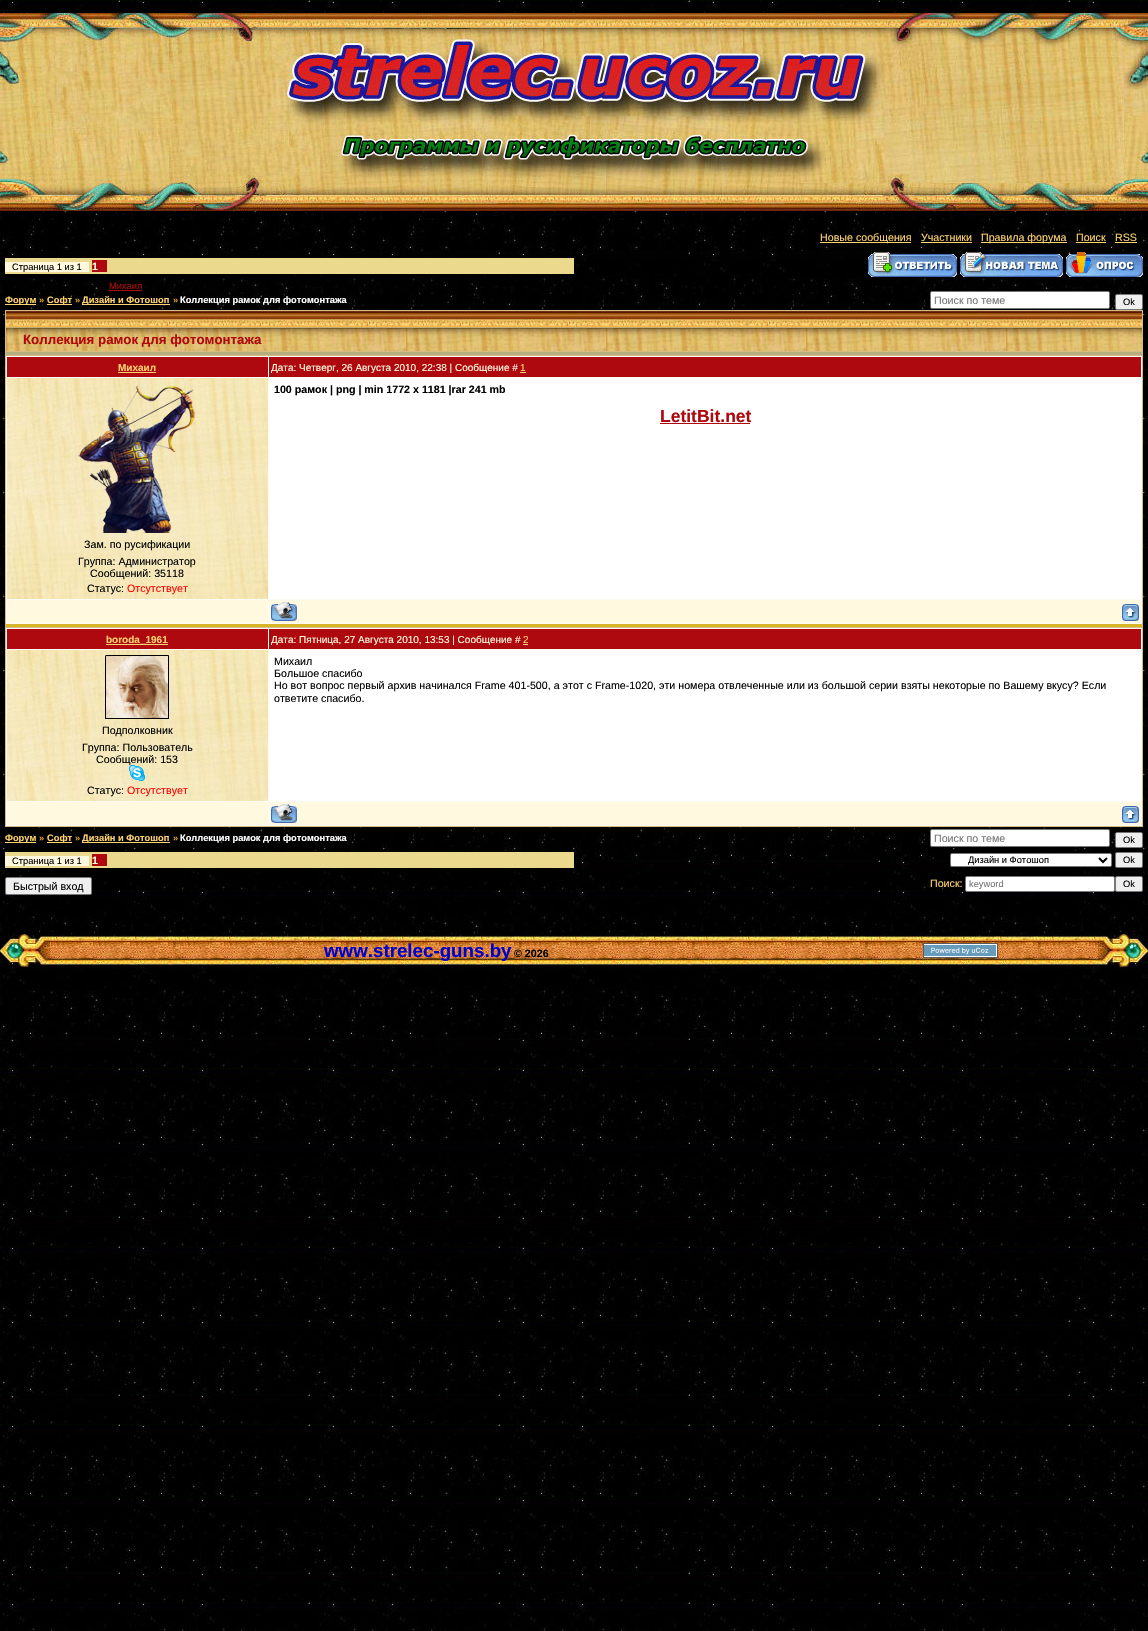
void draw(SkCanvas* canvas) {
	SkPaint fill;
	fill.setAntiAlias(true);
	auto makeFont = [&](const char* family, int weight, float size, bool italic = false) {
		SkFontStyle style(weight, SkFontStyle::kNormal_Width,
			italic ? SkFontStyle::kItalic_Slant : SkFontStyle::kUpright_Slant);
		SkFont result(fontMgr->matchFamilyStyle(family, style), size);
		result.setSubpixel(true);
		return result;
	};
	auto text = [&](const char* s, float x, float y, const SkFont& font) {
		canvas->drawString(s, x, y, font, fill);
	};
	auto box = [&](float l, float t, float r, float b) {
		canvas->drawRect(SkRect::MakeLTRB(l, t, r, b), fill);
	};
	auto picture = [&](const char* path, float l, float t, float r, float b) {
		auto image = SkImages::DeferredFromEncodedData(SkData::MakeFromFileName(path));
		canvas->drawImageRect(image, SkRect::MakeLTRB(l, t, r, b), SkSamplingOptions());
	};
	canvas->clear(0xFFFFFFFF);
	picture("image0.png", 0, 0, 1148, 1631);
	picture("image1.png", 0, 13, 1148, 211);
	fill.setColor(0xFFFED36F);
	box(820, 242, 911, 243);
	box(921, 242, 972, 243);
	box(981, 242, 1067, 243);
	box(1076, 242, 1106, 243);
	box(1115, 242, 1137, 243);
	fill.setColor(0xFFEBD98E);
	box(5, 258, 574, 274);
	fill.setColor(0xFFFFFADF);
	box(5, 262, 89, 272);
	fill.setColor(0xFFAD090E);
	box(92, 260, 107, 272);
	picture("image2.png", 868, 252, 957, 277);
	picture("image3.png", 960, 252, 1063, 277);
	picture("image4.png", 1066, 252, 1143, 277);
	box(109, 290, 142, 291);
	fill.setColor(0xFFFED36F);
	box(5, 304, 36, 305);
	box(47, 304, 72, 305);
	box(82, 304, 170, 305);
	fill.setColor(0xFFFFFFFF);
	canvas->drawRoundRect(SkRect::MakeLTRB(930.5f, 291.5f, 1109.5f, 308.5f), 1.5f, 1.5f, fill);
	fill.setStyle(SkPaint::kStroke_Style);
	fill.setStrokeWidth(1);
	fill.setColor(0xFF767676);
	canvas->drawRoundRect(SkRect::MakeLTRB(930.5f, 291.5f, 1109.5f, 308.5f), 1.5f, 1.5f, fill);
	fill.setStyle(SkPaint::kFill_Style);
	fill.setColor(0xFFEFEFEF);
	canvas->drawRoundRect(SkRect::MakeLTRB(1115.5f, 294.5f, 1142.5f, 309.5f), 1.5f, 1.5f, fill);
	fill.setStyle(SkPaint::kStroke_Style);
	fill.setColor(0xFF767676);
	canvas->drawRoundRect(SkRect::MakeLTRB(1115.5f, 294.5f, 1142.5f, 309.5f), 1.5f, 1.5f, fill);
	fill.setStyle(SkPaint::kFill_Style);
	fill.setColor(0xFFD8BA83);
	box(5, 310, 1143, 827);
	picture("image5.png", 6, 311, 1142, 351);
	fill.setColor(0xFFB5AF80);
	box(6, 352, 1142, 355);
	fill.setColor(0xFFFDFCF4);
	box(6, 356, 1142, 624);
	fill.setColor(0xFFD9B627);
	box(6, 624, 1142, 627);
	fill.setColor(0xFFAD090E);
	box(7, 357, 268, 377);
	fill.setColor(0xFFFED36F);
	box(118, 372, 156, 373);
	fill.setColor(0xFFAD090E);
	box(269, 357, 1141, 377);
	fill.setColor(0xFFFED36F);
	box(520, 372, 526, 373);
	fill.setColor(0xFFFFFFFF);
	box(269, 378, 1141, 599);
	fill.setColor(0xFFAD090E);
	box(660, 423, 750, 424);
	picture("image6.png", 7, 378, 268, 599);
	picture("image7.png", 78, 385, 195, 533);
	fill.setColor(0xFFFFFADF);
	box(7, 600, 268, 623);
	box(269, 600, 1141, 623);
	picture("image8.png", 271, 602, 297, 621);
	picture("image9.png", 1122, 604, 1139, 621);
	fill.setColor(0xFFFDFCF4);
	box(6, 628, 1142, 826);
	fill.setColor(0xFFAD090E);
	box(7, 629, 268, 649);
	fill.setColor(0xFFFED36F);
	box(106, 644, 168, 645);
	fill.setColor(0xFFAD090E);
	box(269, 629, 1141, 649);
	fill.setColor(0xFFFED36F);
	box(523, 644, 528, 645);
	fill.setColor(0xFFFFFFFF);
	box(269, 650, 1141, 801);
	picture("image10.png", 7, 650, 268, 801);
	picture("image11.png", 105, 655, 169, 719);
	fill.setColor(0xFFFFFADF);
	box(7, 802, 268, 825);
	box(269, 802, 1141, 825);
	picture("image8.png", 271, 804, 297, 823);
	picture("image9.png", 1122, 806, 1139, 823);
	fill.setColor(0xFFFED36F);
	box(5, 842, 36, 843);
	box(47, 842, 72, 843);
	box(82, 842, 170, 843);
	fill.setColor(0xFFFFFFFF);
	canvas->drawRoundRect(SkRect::MakeLTRB(930.5f, 829.5f, 1109.5f, 846.5f), 1.5f, 1.5f, fill);
	fill.setStyle(SkPaint::kStroke_Style);
	fill.setColor(0xFF767676);
	canvas->drawRoundRect(SkRect::MakeLTRB(930.5f, 829.5f, 1109.5f, 846.5f), 1.5f, 1.5f, fill);
	fill.setStyle(SkPaint::kFill_Style);
	fill.setColor(0xFFEFEFEF);
	canvas->drawRoundRect(SkRect::MakeLTRB(1115.5f, 832.5f, 1142.5f, 847.5f), 1.5f, 1.5f, fill);
	fill.setStyle(SkPaint::kStroke_Style);
	fill.setColor(0xFF767676);
	canvas->drawRoundRect(SkRect::MakeLTRB(1115.5f, 832.5f, 1142.5f, 847.5f), 1.5f, 1.5f, fill);
	fill.setStyle(SkPaint::kFill_Style);
	fill.setColor(0xFFEBD98E);
	box(5, 852, 574, 868);
	fill.setColor(0xFFFFFADF);
	box(5, 856, 89, 866);
	fill.setColor(0xFFAD090E);
	box(92, 854, 107, 866);
	fill.setColor(0xFFFFFFFF);
	canvas->drawRoundRect(SkRect::MakeLTRB(950.5f, 853.5f, 1111.5f, 866.5f), 1.5f, 1.5f, fill);
	fill.setStyle(SkPaint::kStroke_Style);
	fill.setColor(0xFF767676);
	canvas->drawRoundRect(SkRect::MakeLTRB(950.5f, 853.5f, 1111.5f, 866.5f), 1.5f, 1.5f, fill);
	fill.setStrokeWidth(2);
	fill.setColor(0xFF000000);
	canvas->drawPath(SkPathBuilder().moveTo(1099, 858).lineTo(1103, 862).lineTo(1107, 858).detach(), fill);
	fill.setStyle(SkPaint::kFill_Style);
	fill.setColor(0xFFEFEFEF);
	canvas->drawRoundRect(SkRect::MakeLTRB(1115.5f, 852.5f, 1142.5f, 867.5f), 1.5f, 1.5f, fill);
	fill.setStyle(SkPaint::kStroke_Style);
	fill.setStrokeWidth(1);
	fill.setColor(0xFF767676);
	canvas->drawRoundRect(SkRect::MakeLTRB(1115.5f, 852.5f, 1142.5f, 867.5f), 1.5f, 1.5f, fill);
	fill.setStyle(SkPaint::kFill_Style);
	fill.setColor(0xFFEFEFEF);
	canvas->drawRoundRect(SkRect::MakeLTRB(5.5f, 877.5f, 91.5f, 894.5f), 1.5f, 1.5f, fill);
	fill.setStyle(SkPaint::kStroke_Style);
	fill.setColor(0xFF767676);
	canvas->drawRoundRect(SkRect::MakeLTRB(5.5f, 877.5f, 91.5f, 894.5f), 1.5f, 1.5f, fill);
	fill.setStyle(SkPaint::kFill_Style);
	fill.setColor(0xFFFFFFFF);
	canvas->drawRoundRect(SkRect::MakeLTRB(965.5f, 876.5f, 1114.5f, 891.5f), 1.5f, 1.5f, fill);
	fill.setStyle(SkPaint::kStroke_Style);
	fill.setColor(0xFF767676);
	canvas->drawRoundRect(SkRect::MakeLTRB(965.5f, 876.5f, 1114.5f, 891.5f), 1.5f, 1.5f, fill);
	fill.setStyle(SkPaint::kFill_Style);
	fill.setColor(0xFFEFEFEF);
	canvas->drawRoundRect(SkRect::MakeLTRB(1115.5f, 876.5f, 1142.5f, 891.5f), 1.5f, 1.5f, fill);
	fill.setStyle(SkPaint::kStroke_Style);
	fill.setColor(0xFF767676);
	canvas->drawRoundRect(SkRect::MakeLTRB(1115.5f, 876.5f, 1142.5f, 891.5f), 1.5f, 1.5f, fill);
	picture("image13.png", 50, 934, 1098, 967);
	picture("image14.png", 0, 934, 50, 967);
	picture("image15.png", 923, 943, 998, 958);
	picture("image16.png", 1098, 934, 1148, 967);
	auto font1 = makeFont("Liberation Sans", 400, 10.67f);
	fill.setStyle(SkPaint::kFill_Style);
	fill.setColor(0xFFFED36F);
	text("Новые сообщения", 820, 241, font1);
	text("Участники", 921, 241, font1);
	text("Правила форума", 981, 241, font1);
	text("Поиск", 1076, 241, font1);
	text("RSS", 1115, 241, font1);
	auto font2 = makeFont("Liberation Sans", 400, 9.3f);
	fill.setColor(0xFF000000);
	text("Страница 1 из 1", 12, 270, font2);
	auto font3 = makeFont("Liberation Sans", 700, 10.67f);
	fill.setColor(0xFFFFFADF);
	text("1", 92, 270, font3);
	fill.setColor(0xFFAD090E);
	text("Михаил", 109, 289, font2);
	auto font4 = makeFont("Liberation Sans", 700, 9.3f);
	fill.setColor(0xFFFED36F);
	text("Форум", 5, 303, font4);
	fill.setColor(0xFFD69D30);
	text("»", 39, 303, font4);
	fill.setColor(0xFFFED36F);
	text("Софт", 47, 303, font4);
	fill.setColor(0xFFD69D30);
	text("»", 75, 303, font4);
	fill.setColor(0xFFFED36F);
	text("Дизайн и Фотошоп", 82, 303, font4);
	fill.setColor(0xFFD69D30);
	text("»", 173, 303, font4);
	fill.setColor(0xFFFFFFFF);
	text("Коллекция рамок для фотомонтажа", 180, 303, font4);
	fill.setColor(0xFF757575);
	text("Поиск по теме", 934, 304, font1);
	fill.setColor(0xFF000000);
	text("Ok", 1123, 305, font2);
	auto font5 = makeFont("Liberation Sans", 700, 13.3f);
	fill.setColor(0xFFAD090E);
	text("Коллекция рамок для фотомонтажа", 23, 344, font5);
	auto font6 = makeFont("Liberation Sans", 700, 10);
	fill.setColor(0xFFFED36F);
	text("Михаил", 118, 371, font6);
	auto font7 = makeFont("Liberation Sans", 400, 10);
	fill.setColor(0xFFFFFADF);
	text("Дата: Четверг, 26 Августа 2010, 22:38 | Сообщение #", 271, 371, font7);
	fill.setColor(0xFFFED36F);
	text("1", 520, 371, font7);
	fill.setColor(0xFF000000);
	text("100 рамок | png | min 1772 x 1181 |rar 241 mb", 274, 393, font3);
	auto font8 = makeFont("Liberation Sans", 700, 17.5f);
	fill.setColor(0xFFAD090E);
	text("LetitBit.net", 660, 422, font8);
	fill.setColor(0xFF000000);
	text("Зам. по русификации", 84, 548, font1);
	text("Группа: Администратор", 78, 565, font1);
	text("Сообщений: 35118", 90, 577, font1);
	text("Статус:", 87, 592, font1);
	fill.setColor(0xFFFF0000);
	text("Отсутствует", 127, 592, font1);
	fill.setColor(0xFFFED36F);
	text("boroda_1961", 106, 643, font6);
	fill.setColor(0xFFFFFADF);
	text("Дата: Пятница, 27 Августа 2010, 13:53 | Сообщение #", 271, 643, font7);
	fill.setColor(0xFFFED36F);
	text("2", 523, 643, font7);
	fill.setColor(0xFF000000);
	text("Михаил", 274, 665, font1);
	text("Большое спасибо", 274, 677, font1);
	text("Но вот вопрос первый архив начинался Frame 401-500, а этот с Frame-1020, эти номера отвлеченные или из большой серии взяты некоторые по Вашему вкусу? Если", 274, 689, font1);
	text("ответите спасибо.", 274, 702, font1);
	text("Подполковник", 102, 734, font1);
	text("Группа: Пользователь", 82, 751, font1);
	text("Сообщений: 153", 96, 763, font1);
	picture("image12.png", 129, 765, 145, 781);
	text("Статус:", 87, 794, font1);
	fill.setColor(0xFFFF0000);
	text("Отсутствует", 127, 794, font1);
	fill.setColor(0xFFFED36F);
	text("Форум", 5, 841, font4);
	fill.setColor(0xFFD69D30);
	text("»", 39, 841, font4);
	fill.setColor(0xFFFED36F);
	text("Софт", 47, 841, font4);
	fill.setColor(0xFFD69D30);
	text("»", 75, 841, font4);
	fill.setColor(0xFFFED36F);
	text("Дизайн и Фотошоп", 82, 841, font4);
	fill.setColor(0xFFD69D30);
	text("»", 173, 841, font4);
	fill.setColor(0xFFFFFFFF);
	text("Коллекция рамок для фотомонтажа", 180, 841, font4);
	fill.setColor(0xFF757575);
	text("Поиск по теме", 934, 842, font1);
	fill.setColor(0xFF000000);
	text("Ok", 1123, 843, font2);
	text("Страница 1 из 1", 12, 864, font2);
	fill.setColor(0xFFFFFADF);
	text("1", 92, 864, font3);
	fill.setColor(0xFF000000);
	text("Дизайн и Фотошоп", 968, 863, font2);
	text("Ok", 1123, 863, font2);
	text("Быстрый вход", 13, 890, font1);
	fill.setColor(0xFFFED36F);
	text("Поиск:", 930, 887, font1);
	fill.setColor(0xFF757575);
	text("keyword", 969, 887, font2);
	fill.setColor(0xFF000000);
	text("Ok", 1123, 887, font2);
	auto font9 = makeFont("Liberation Sans", 700, 18.75f);
	fill.setColor(0xFF0000CD);
	text("www.strelec-guns.by", 324, 957, font9);
	fill.setColor(0xFF000000);
	text("© 2026", 514, 957, font3);
}
